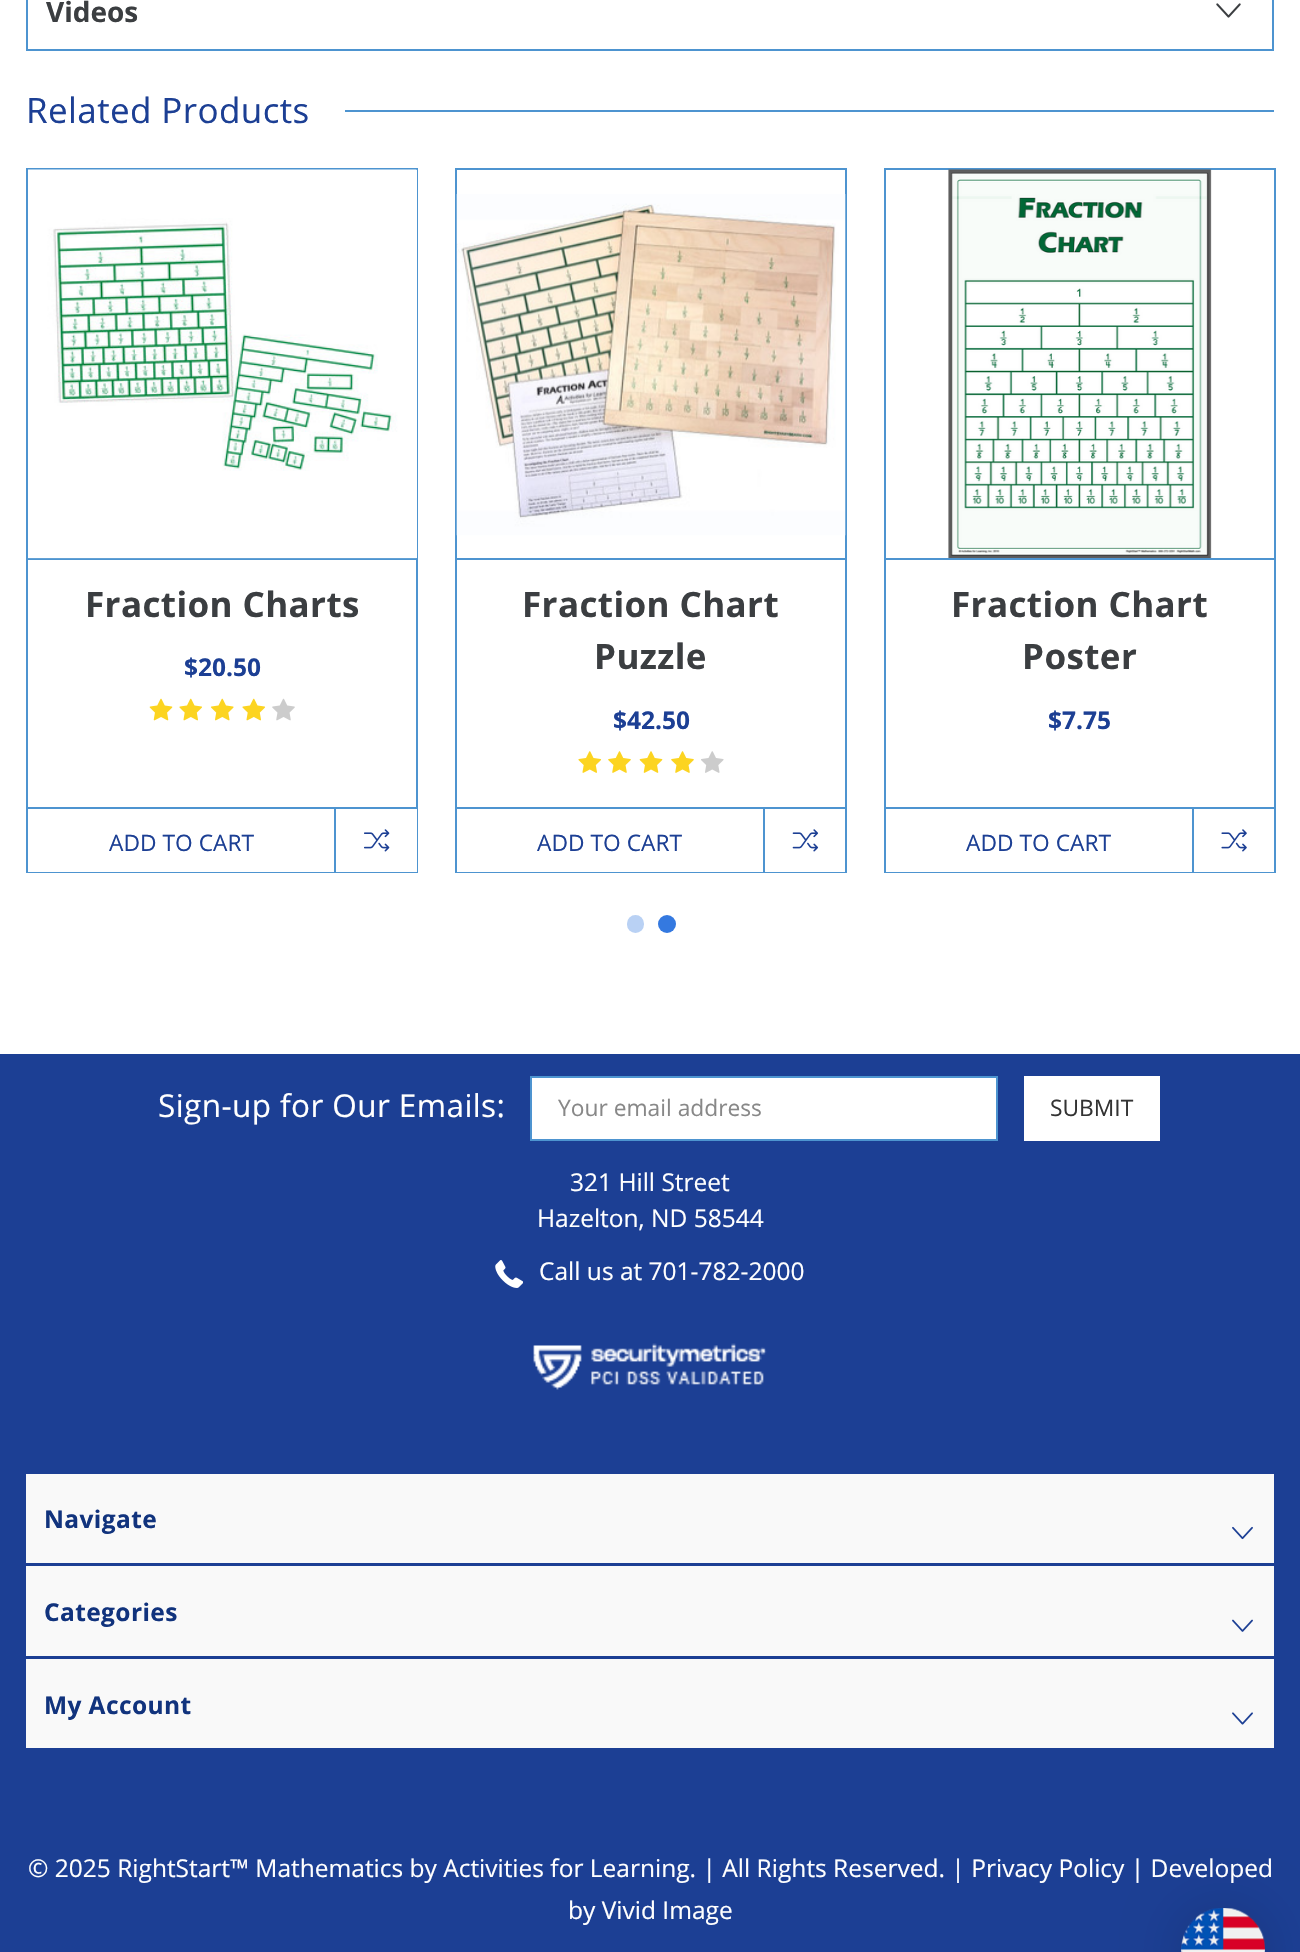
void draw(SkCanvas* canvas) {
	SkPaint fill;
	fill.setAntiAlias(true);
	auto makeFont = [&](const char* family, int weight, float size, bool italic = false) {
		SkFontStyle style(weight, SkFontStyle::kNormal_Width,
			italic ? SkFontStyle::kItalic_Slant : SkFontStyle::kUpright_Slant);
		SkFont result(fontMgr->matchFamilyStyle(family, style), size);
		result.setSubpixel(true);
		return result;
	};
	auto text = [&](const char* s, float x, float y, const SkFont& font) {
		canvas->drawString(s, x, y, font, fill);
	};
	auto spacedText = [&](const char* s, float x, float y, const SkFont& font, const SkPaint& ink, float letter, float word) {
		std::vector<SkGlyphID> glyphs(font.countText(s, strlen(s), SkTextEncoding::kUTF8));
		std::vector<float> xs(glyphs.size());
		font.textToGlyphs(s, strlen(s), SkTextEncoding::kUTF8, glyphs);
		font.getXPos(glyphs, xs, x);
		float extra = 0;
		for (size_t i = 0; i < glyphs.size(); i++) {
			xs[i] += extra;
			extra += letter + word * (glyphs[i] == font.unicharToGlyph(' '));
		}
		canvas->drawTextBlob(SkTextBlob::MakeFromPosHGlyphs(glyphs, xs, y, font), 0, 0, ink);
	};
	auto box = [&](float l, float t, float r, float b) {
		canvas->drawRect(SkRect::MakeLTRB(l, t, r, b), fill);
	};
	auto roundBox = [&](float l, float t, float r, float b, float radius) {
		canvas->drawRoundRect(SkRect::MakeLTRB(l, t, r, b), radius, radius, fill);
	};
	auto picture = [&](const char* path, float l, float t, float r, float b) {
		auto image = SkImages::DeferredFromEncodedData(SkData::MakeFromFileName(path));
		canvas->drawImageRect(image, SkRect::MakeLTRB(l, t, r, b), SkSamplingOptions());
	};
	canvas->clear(0xFFFFFFFF);
	fill.setColor(0xFF4D94D0);
	box(1272, 0, 1274, 51);
	box(26, 0, 28, 51);
	box(28, 49, 1272, 51);
	picture("image0.png", 1216, 3, 1241, 18);
	box(345, 110, 1274, 112);
	fill.setStyle(SkPaint::kStroke_Style);
	fill.setStrokeWidth(2);
	canvas->drawRect(SkRect::MakeLTRB(27, 169, 417, 872), fill);
	fill.setStyle(SkPaint::kFill_Style);
	fill.setColor(0xFFFFFFFF);
	box(416, 170, 417, 558);
	fill.setColor(0xFF4D94D0);
	box(28, 558, 417, 560);
	picture("image1.png", 28, 169, 417, 559);
	picture("image2.png", 149, 698, 173, 721);
	picture("image3.png", 179, 698, 203, 721);
	picture("image4.png", 210, 698, 234, 721);
	picture("image3.png", 242, 698, 266, 721);
	picture("image5.png", 272, 698, 295, 721);
	box(28, 807, 417, 809);
	fill.setColor(0xFFFFFFFF);
	box(28, 871, 334, 872);
	fill.setColor(0xFF4D94D0);
	box(334, 809, 336, 872);
	fill.setColor(0xFFFFFFFF);
	box(336, 809, 417, 872);
	picture("image6.png", 364, 829, 390, 852);
	fill.setStyle(SkPaint::kStroke_Style);
	fill.setColor(0xFF4D94D0);
	canvas->drawRect(SkRect::MakeLTRB(456, 169, 846, 872), fill);
	picture("image7.png", 456, 194, 846, 536);
	fill.setStyle(SkPaint::kFill_Style);
	box(457, 558, 845, 560);
	picture("image8.png", 578, 751, 602, 773);
	picture("image9.png", 608, 751, 631, 773);
	picture("image10.png", 639, 751, 663, 773);
	picture("image9.png", 671, 751, 694, 773);
	picture("image11.png", 701, 751, 724, 773);
	box(457, 807, 845, 809);
	fill.setColor(0xFFFFFFFF);
	box(457, 871, 763, 872);
	fill.setColor(0xFF4D94D0);
	box(763, 809, 765, 872);
	fill.setColor(0xFFFFFFFF);
	box(765, 871, 845, 872);
	picture("image12.png", 792, 829, 819, 852);
	fill.setStyle(SkPaint::kStroke_Style);
	fill.setColor(0xFF4D94D0);
	canvas->drawRect(SkRect::MakeLTRB(885, 169, 1275, 872), fill);
	picture("image13.png", 948, 169, 1212, 558);
	fill.setStyle(SkPaint::kFill_Style);
	box(886, 558, 1274, 560);
	box(886, 807, 1274, 809);
	fill.setColor(0xFFFFFFFF);
	box(886, 871, 1192, 872);
	fill.setColor(0xFF4D94D0);
	box(1192, 809, 1194, 872);
	fill.setColor(0xFFFFFFFF);
	box(1194, 871, 1274, 872);
	picture("image14.png", 1221, 829, 1247, 852);
	fill.setColor(0xFFB9D1F4);
	roundBox(627, 915, 644, 933, 8.5f);
	fill.setColor(0xFF3479E0);
	canvas->drawCircle(667, 924, 9, fill);
	fill.setColor(0xFF1C3F94);
	box(0, 1054, 1300, 1952);
	fill.setColor(0xFFFFFFFF);
	canvas->drawRect(SkRect::MakeLTRB(531, 1077, 997, 1140), fill);
	fill.setStyle(SkPaint::kStroke_Style);
	fill.setColor(0xFF4D94D0);
	canvas->drawRect(SkRect::MakeLTRB(531, 1077, 997, 1140), fill);
	fill.setStyle(SkPaint::kFill_Style);
	fill.setColor(0xFFFFFFFF);
	box(1024, 1076, 1160, 1141);
	picture("image15.png", 495, 1260, 523, 1288);
	picture("image16.png", 533, 1343, 767, 1390);
	fill.setColor(0xFFF9F9F9);
	box(26, 1474, 1274, 1563);
	picture("image17.png", 1232, 1526, 1253, 1540);
	box(26, 1566, 1274, 1656);
	picture("image18.png", 1232, 1619, 1253, 1632);
	box(26, 1659, 1274, 1748);
	picture("image19.png", 1232, 1712, 1253, 1725);
	fill.setColor(0x29000000);
	fill.setMaskFilter(SkMaskFilter::MakeBlur(kNormal_SkBlurStyle, 28));
	canvas->drawRoundRect(SkRect::MakeLTRB(1181, 1911, 1265, 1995), 42, 42, fill);
	fill.setMaskFilter(nullptr);
	picture("image20.png", 1181, 1908, 1265, 1952);
	auto font1 = makeFont("Open Sans", 700, 28);
	fill.setColor(0xFF3B3E41);
	text("Videos", 46, 22, font1);
	auto font2 = makeFont("Open Sans", 400, 35);
	fill.setColor(0xFF1C3F94);
	spacedText("Related Products", 26, 123, font2, fill, 0.4f, 0);
	auto font3 = makeFont("Open Sans", 700, 35);
	fill.setColor(0xFF3B3E41);
	spacedText("Fraction Charts", 85, 617, font3, fill, 0.4f, 0);
	auto font4 = makeFont("Open Sans", 700, 24.5f);
	fill.setColor(0xFF1C3F94);
	text("$20.50", 184, 676, font4);
	auto font5 = makeFont("Open Sans", 400, 22.75f);
	text("ADD TO CART", 109, 851, font5);
	fill.setColor(0xFF3B3E41);
	spacedText("Fraction Chart", 522, 617, font3, fill, 0.4f, 0);
	spacedText("Puzzle", 594, 669, font3, fill, 0.4f, 0);
	fill.setColor(0xFF1C3F94);
	text("$42.50", 613, 729, font4);
	text("ADD TO CART", 537, 851, font5);
	fill.setColor(0xFF3B3E41);
	spacedText("Fraction Chart", 951, 617, font3, fill, 0.4f, 0);
	spacedText("Poster", 1022, 669, font3, fill, 0.4f, 0);
	fill.setColor(0xFF1C3F94);
	text("$7.75", 1048, 729, font4);
	text("ADD TO CART", 966, 851, font5);
	auto font6 = makeFont("Open Sans", 400, 31.5f);
	fill.setColor(0xFFFFFFFF);
	spacedText("Sign-up for Our Emails:", 158, 1117, font6, fill, 0.4f, 0);
	fill.setColor(0xFF888888);
	text("Your email address", 558, 1116, font5);
	fill.setColor(0xFF333333);
	text("SUBMIT", 1050, 1116, font5);
	auto font7 = makeFont("Open Sans", 400, 24.5f);
	fill.setColor(0xFFFFFFFF);
	text("321 Hill Street", 570, 1191, font7);
	text("Hazelton, ND 58544", 537, 1227, font7);
	text("Call us at 701-782-2000", 539, 1280, font7);
	fill.setColor(0xFF11337D);
	spacedText("Navigate", 44, 1528, font4, fill, 0.4f, 0);
	spacedText("Categories", 44, 1621, font4, fill, 0.4f, 0);
	spacedText("My Account", 44, 1714, font4, fill, 0.4f, 0);
	fill.setColor(0xFFFFFFFF);
	text("© 2025 RightStart™ Mathematics by Activities for Learning. | All Rights Reserved. | Privacy Policy | Developed", 28, 1877, font7);
	text("by Vivid Image", 568, 1919, font7);
}
